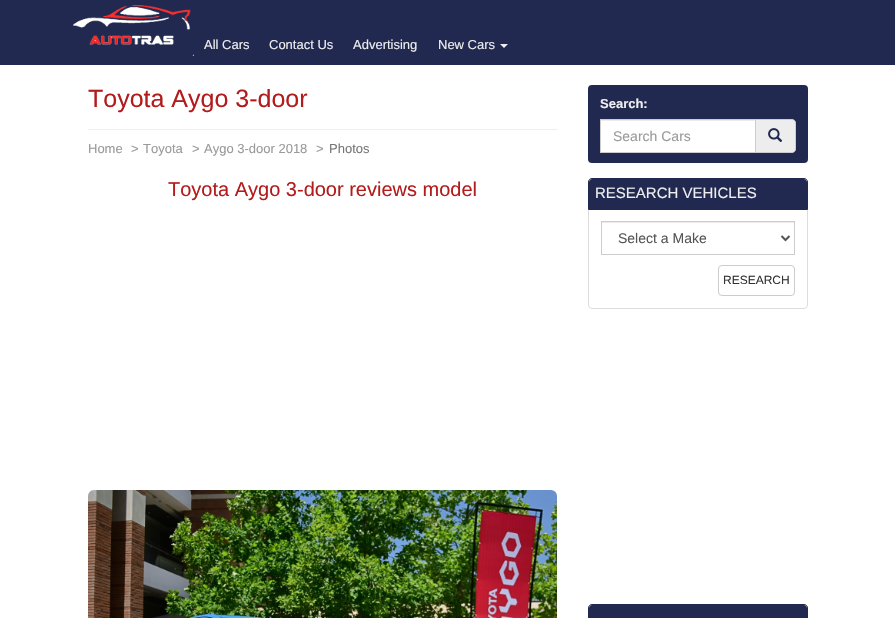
void draw(SkCanvas* canvas) {
	SkPaint fill;
	fill.setAntiAlias(true);
	auto makeFont = [&](const char* family, int weight, float size, bool italic = false) {
		SkFontStyle style(weight, SkFontStyle::kNormal_Width,
			italic ? SkFontStyle::kItalic_Slant : SkFontStyle::kUpright_Slant);
		SkFont result(fontMgr->matchFamilyStyle(family, style), size);
		result.setSubpixel(true);
		return result;
	};
	auto text = [&](const char* s, float x, float y, const SkFont& font) {
		canvas->drawString(s, x, y, font, fill);
	};
	auto box = [&](float l, float t, float r, float b) {
		canvas->drawRect(SkRect::MakeLTRB(l, t, r, b), fill);
	};
	auto roundBox = [&](float l, float t, float r, float b, float radius) {
		canvas->drawRoundRect(SkRect::MakeLTRB(l, t, r, b), radius, radius, fill);
	};
	auto picture = [&](const char* path, float l, float t, float r, float b) {
		auto image = SkImages::DeferredFromEncodedData(SkData::MakeFromFileName(path));
		canvas->drawImageRect(image, SkRect::MakeLTRB(l, t, r, b), SkSamplingOptions());
	};
	canvas->clear(0xFFFFFFFF);
	fill.setColor(0xFF212950);
	box(0, 0, 895, 65);
	picture("image0.png", 73, 5, 194, 56);
	fill.setColor(0xFFEEEEEE);
	canvas->drawPath(SkPathBuilder().moveTo(500, 44).lineTo(508, 44).lineTo(504, 48).close().detach(), fill);
	fill.setColor(0xFFEFEFEF);
	box(88, 129, 558, 130);
	picture("image1.png", 88, 490, 557, 618);
	fill.setColor(0xFF212950);
	roundBox(588, 85, 808, 163, 4);
	fill.setColor(0xFFFFFFFF);
	box(601, 121, 755, 152);
	fill.setColor(0xFFECECEC);
	box(601, 120, 755, 121);
	fill.setStyle(SkPaint::kStroke_Style);
	fill.setStrokeWidth(1);
	fill.setColor(0xFFCCCCCC);
	canvas->drawRect(SkRect::MakeLTRB(600.5f, 119.5f, 755.5f, 152.5f), fill);
	fill.setStyle(SkPaint::kFill_Style);
	fill.setColor(0xFFEDEDED);
	canvas->drawPath(SkPathBuilder().moveTo(755.5f, 119.5f).lineTo(792, 119.5f).cubicTo(794, 119.5f, 795.5f, 121, 795.5f, 123).lineTo(795.5f, 149).cubicTo(795.5f, 151, 794, 152.5f, 792, 152.5f).lineTo(755.5f, 152.5f).close().detach(), fill);
	fill.setStyle(SkPaint::kStroke_Style);
	fill.setColor(0xFFCCCCCC);
	canvas->drawPath(SkPathBuilder().moveTo(755.5f, 119.5f).lineTo(792, 119.5f).cubicTo(794, 119.5f, 795.5f, 121, 795.5f, 123).lineTo(795.5f, 149).cubicTo(795.5f, 151, 794, 152.5f, 792, 152.5f).lineTo(755.5f, 152.5f).close().detach(), fill);
	picture("image2.png", 768, 128, 783, 142);
	fill.setColor(0xFFDDDDDD);
	canvas->drawRoundRect(SkRect::MakeLTRB(588.5f, 178.5f, 807.5f, 308.5f), 3.5f, 3.5f, fill);
	fill.setColor(0xFF212950);
	canvas->drawPath(SkPathBuilder().moveTo(592, 178.5f).lineTo(804, 178.5f).cubicTo(806, 178.5f, 807.5f, 180, 807.5f, 182).lineTo(807.5f, 209.5f).lineTo(588.5f, 209.5f).lineTo(588.5f, 182).cubicTo(588.5f, 180, 590, 178.5f, 592, 178.5f).close().detach(), fill);
	fill.setStyle(SkPaint::kFill_Style);
	canvas->drawPath(SkPathBuilder().moveTo(592, 179).lineTo(804, 179).cubicTo(805.5f, 179, 807, 180.5f, 807, 182).lineTo(807, 209).lineTo(589, 209).lineTo(589, 182).cubicTo(589, 180.5f, 590.5f, 179, 592, 179).close().detach(), fill);
	fill.setColor(0xFFECECEC);
	box(602, 222, 794, 223);
	fill.setStyle(SkPaint::kStroke_Style);
	fill.setColor(0xFFCCCCCC);
	canvas->drawRect(SkRect::MakeLTRB(601.5f, 221.5f, 794.5f, 254.5f), fill);
	fill.setStrokeWidth(2);
	fill.setColor(0xFF555555);
	canvas->drawPath(SkPathBuilder().moveTo(781.5f, 236).lineTo(785.5f, 240).lineTo(789.5f, 236).detach(), fill);
	fill.setStrokeWidth(1);
	fill.setColor(0xFFCCCCCC);
	canvas->drawRoundRect(SkRect::MakeLTRB(718.5f, 265.5f, 794.5f, 295.5f), 3.5f, 3.5f, fill);
	fill.setColor(0xFFDDDDDD);
	canvas->drawRoundRect(SkRect::MakeLTRB(588.5f, 604.5f, 807.5f, 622.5f), 3.5f, 3.5f, fill);
	fill.setColor(0xFF212950);
	canvas->drawPath(SkPathBuilder().moveTo(592, 604.5f).lineTo(804, 604.5f).cubicTo(806, 604.5f, 807.5f, 606, 807.5f, 608).lineTo(807.5f, 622.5f).lineTo(588.5f, 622.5f).lineTo(588.5f, 608).cubicTo(588.5f, 606, 590, 604.5f, 592, 604.5f).close().detach(), fill);
	fill.setStyle(SkPaint::kFill_Style);
	canvas->drawPath(SkPathBuilder().moveTo(592, 605).lineTo(804, 605).cubicTo(805.5f, 605, 807, 606.5f, 807, 608).lineTo(807, 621).lineTo(589, 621).lineTo(589, 608).cubicTo(589, 606.5f, 590.5f, 605, 592, 605).close().detach(), fill);
	auto font1 = makeFont("Liberation Sans", 400, 13);
	fill.setColor(0xFFEEEEEE);
	text("All Cars", 204, 49, font1);
	text("Contact Us", 269, 49, font1);
	text("Advertising", 353, 49, font1);
	text("New Cars", 438, 49, font1);
	auto font2 = makeFont("Liberation Sans", 400, 25);
	fill.setColor(0xFFB31C1C);
	text("Toyota Aygo 3-door", 88, 107, font2);
	fill.setColor(0xFF9A9A9A);
	text("Home", 88, 153, font1);
	text(">", 131, 153, font1);
	text("Toyota", 143, 153, font1);
	text(">", 192, 153, font1);
	text("Aygo 3-door 2018", 204, 153, font1);
	text(">", 316, 153, font1);
	fill.setColor(0xFF777777);
	text("Photos", 329, 153, font1);
	auto font3 = makeFont("Liberation Sans", 400, 20);
	fill.setColor(0xFFB31C1C);
	text("Toyota Aygo 3-door reviews model", 168, 196, font3);
	auto font4 = makeFont("Liberation Sans", 700, 13);
	fill.setColor(0xFFEEEEEE);
	text("Search:", 600, 108, font4);
	auto font5 = makeFont("Liberation Sans", 400, 14);
	fill.setColor(0xFF9A9A9A);
	text("Search Cars", 613, 141, font5);
	auto font6 = makeFont("Liberation Sans", 400, 15);
	fill.setColor(0xFFEEEEEE);
	text("RESEARCH VEHICLES", 595, 198, font6);
	fill.setColor(0xFF555555);
	text("Select a Make", 618, 243, font5);
	auto font7 = makeFont("Liberation Sans", 400, 12);
	fill.setColor(0xFF333333);
	text("RESEARCH", 723, 284, font7);
}
